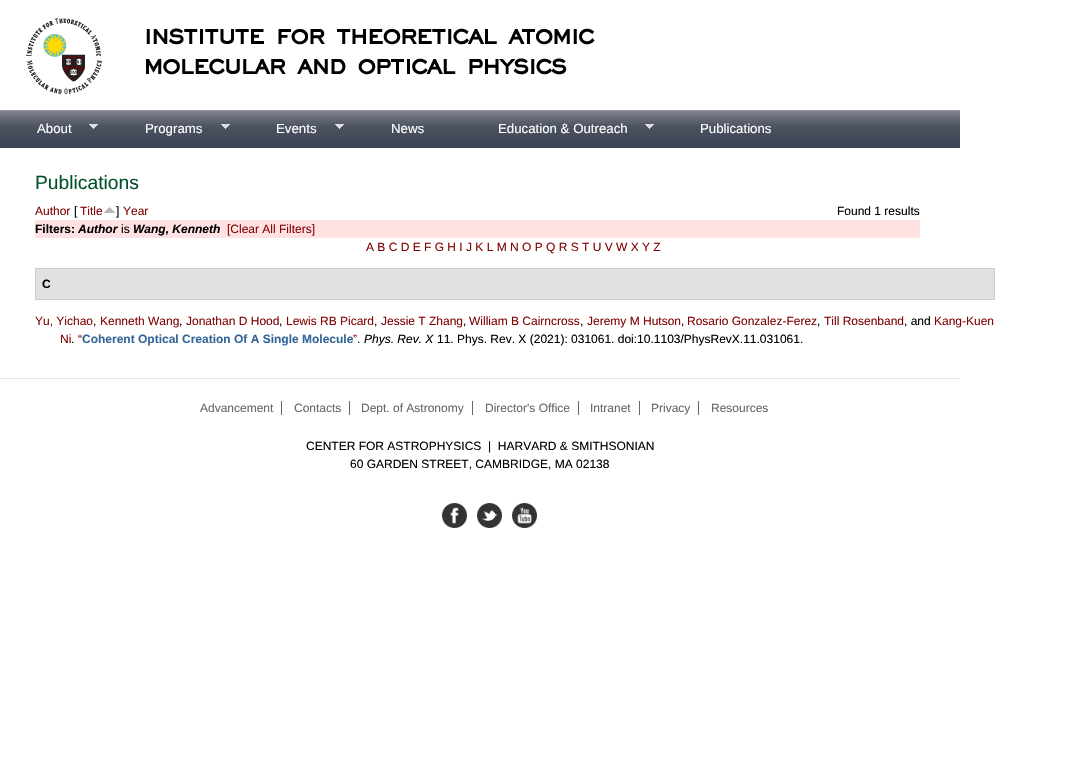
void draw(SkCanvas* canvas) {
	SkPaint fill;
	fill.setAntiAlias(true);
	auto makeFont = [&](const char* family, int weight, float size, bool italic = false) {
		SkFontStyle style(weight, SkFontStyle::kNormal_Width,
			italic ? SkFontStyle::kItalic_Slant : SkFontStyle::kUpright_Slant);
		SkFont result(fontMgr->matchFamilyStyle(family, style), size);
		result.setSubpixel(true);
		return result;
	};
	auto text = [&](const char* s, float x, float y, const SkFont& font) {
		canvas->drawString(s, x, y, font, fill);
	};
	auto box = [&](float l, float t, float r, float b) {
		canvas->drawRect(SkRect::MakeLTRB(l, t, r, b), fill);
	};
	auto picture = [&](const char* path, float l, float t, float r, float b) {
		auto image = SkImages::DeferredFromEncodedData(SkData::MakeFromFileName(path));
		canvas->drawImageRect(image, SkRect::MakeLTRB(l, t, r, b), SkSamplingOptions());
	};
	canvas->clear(0xFFFFFFFF);
	picture("image0.png", 26, 18, 595, 94);
	picture("image1.png", 809, 110, 960, 148);
	picture("image2.png", 0, 110, 108, 148);
	picture("image3.png", 89, 124, 98, 129);
	picture("image4.png", 108, 110, 239, 148);
	picture("image3.png", 221, 124, 230, 129);
	picture("image5.png", 239, 110, 354, 148);
	picture("image3.png", 335, 124, 344, 129);
	picture("image6.png", 354, 110, 461, 148);
	picture("image7.png", 461, 110, 664, 148);
	picture("image3.png", 645, 124, 654, 129);
	picture("image8.png", 664, 110, 809, 148);
	picture("image9.png", 104, 207, 115, 213);
	fill.setColor(0xFFFFE1E1);
	box(35, 220, 920, 238);
	fill.setColor(0xFFE1E1E1);
	canvas->drawRect(SkRect::MakeLTRB(35.5f, 268.5f, 994.5f, 299.5f), fill);
	fill.setStyle(SkPaint::kStroke_Style);
	fill.setStrokeWidth(1);
	fill.setColor(0xFFCCCCCC);
	canvas->drawRect(SkRect::MakeLTRB(35.5f, 268.5f, 994.5f, 299.5f), fill);
	fill.setPathEffect(SkDashPathEffect::Make({{1, 1}}, 0));
	canvas->drawPath(SkPathBuilder().moveTo(0, 378.5f).lineTo(960, 378.5f).detach(), fill);
	fill.setPathEffect(nullptr);
	fill.setStyle(SkPaint::kFill_Style);
	fill.setColor(0xFF666666);
	box(281, 401, 282, 415);
	box(349, 401, 350, 415);
	box(472, 401, 473, 415);
	box(578, 401, 579, 415);
	box(639, 401, 640, 415);
	box(698, 401, 699, 415);
	picture("image10.png", 442, 503, 467, 528);
	picture("image11.png", 477, 503, 502, 528);
	picture("image12.png", 512, 503, 537, 528);
	auto font1 = makeFont("Liberation Sans", 400, 13.25f);
	fill.setColor(0xFFFFFFFF);
	text("About", 37, 133, font1);
	text("Programs", 145, 133, font1);
	text("Events", 276, 133, font1);
	text("News", 391, 133, font1);
	text("Education & Outreach", 498, 133, font1);
	text("Publications", 700, 133, font1);
	auto font2 = makeFont("Liberation Sans", 400, 19.25f);
	fill.setColor(0xFF00512C);
	text("Publications", 35, 189, font2);
	auto font3 = makeFont("Liberation Sans", 400, 12);
	fill.setColor(0xFF820505);
	text("Author", 35, 215, font3);
	fill.setColor(0xFF000000);
	text("[", 74, 215, font3);
	fill.setColor(0xFF820505);
	text("Title", 80, 215, font3);
	fill.setColor(0xFF000000);
	text("]", 116, 215, font3);
	fill.setColor(0xFF820505);
	text("Year", 123, 215, font3);
	fill.setColor(0xFF000000);
	text("Found 1 results", 837, 215, font3);
	auto font4 = makeFont("Liberation Sans", 700, 12);
	text("Filters:", 35, 233, font4);
	auto font5 = makeFont("Liberation Sans", 700, 12, true);
	text("Author", 78, 233, font5);
	text("is", 121, 233, font3);
	text("Wang, Kenneth", 133, 233, font5);
	fill.setColor(0xFF820505);
	text("[Clear All Filters]", 227, 233, font3);
	text("A B C D E F G H I J K L M N O P Q R S T U V W X Y Z", 366, 251, font3);
	fill.setColor(0xFF000000);
	text("C", 42, 288, font4);
	fill.setColor(0xFF820505);
	text("Yu, Yichao", 35, 325, font3);
	fill.setColor(0xFF000000);
	text(",", 93, 325, font3);
	fill.setColor(0xFF820505);
	text("Kenneth Wang", 100, 325, font3);
	fill.setColor(0xFF000000);
	text(",", 179, 325, font3);
	fill.setColor(0xFF820505);
	text("Jonathan D Hood", 186, 325, font3);
	fill.setColor(0xFF000000);
	text(",", 279, 325, font3);
	fill.setColor(0xFF820505);
	text("Lewis RB Picard", 286, 325, font3);
	fill.setColor(0xFF000000);
	text(",", 374, 325, font3);
	fill.setColor(0xFF820505);
	text("Jessie T Zhang", 381, 325, font3);
	fill.setColor(0xFF000000);
	text(",", 463, 325, font3);
	fill.setColor(0xFF820505);
	text("William B Cairncross", 469, 325, font3);
	fill.setColor(0xFF000000);
	text(",", 580, 325, font3);
	fill.setColor(0xFF820505);
	text("Jeremy M Hutson", 587, 325, font3);
	fill.setColor(0xFF000000);
	text(",", 681, 325, font3);
	fill.setColor(0xFF820505);
	text("Rosario Gonzalez-Ferez", 687, 325, font3);
	fill.setColor(0xFF000000);
	text(",", 817, 325, font3);
	fill.setColor(0xFF820505);
	text("Till Rosenband", 824, 325, font3);
	fill.setColor(0xFF000000);
	text(", and", 904, 325, font3);
	fill.setColor(0xFF820505);
	text("Kang-Kuen", 934, 325, font3);
	text("Ni", 60, 343, font3);
	fill.setColor(0xFF000000);
	text(".", 71, 343, font3);
	fill.setColor(0xFF820505);
	text("“", 78, 343, font3);
	fill.setColor(0xFF336599);
	text("Coherent Optical Creation Of A Single Molecule", 82, 343, font4);
	fill.setColor(0xFF820505);
	text("”", 353, 343, font3);
	fill.setColor(0xFF000000);
	text(".", 357, 343, font3);
	auto font6 = makeFont("Liberation Sans", 400, 12, true);
	text("Phys. Rev. X", 364, 343, font6);
	text("11. Phys. Rev. X (2021): 031061. doi:10.1103/PhysRevX.11.031061.", 437, 343, font3);
	fill.setColor(0xFF666666);
	text("Advancement", 200, 412, font3);
	text("Contacts", 294, 412, font3);
	text("Dept. of Astronomy", 361, 412, font3);
	text("Director's Office", 485, 412, font3);
	text("Intranet", 590, 412, font3);
	text("Privacy", 651, 412, font3);
	text("Resources", 711, 412, font3);
	fill.setColor(0xFF000000);
	text("CENTER FOR ASTROPHYSICS  |  HARVARD & SMITHSONIAN", 306, 450, font3);
	text("60 GARDEN STREET, CAMBRIDGE, MA 02138", 350, 468, font3);
}
